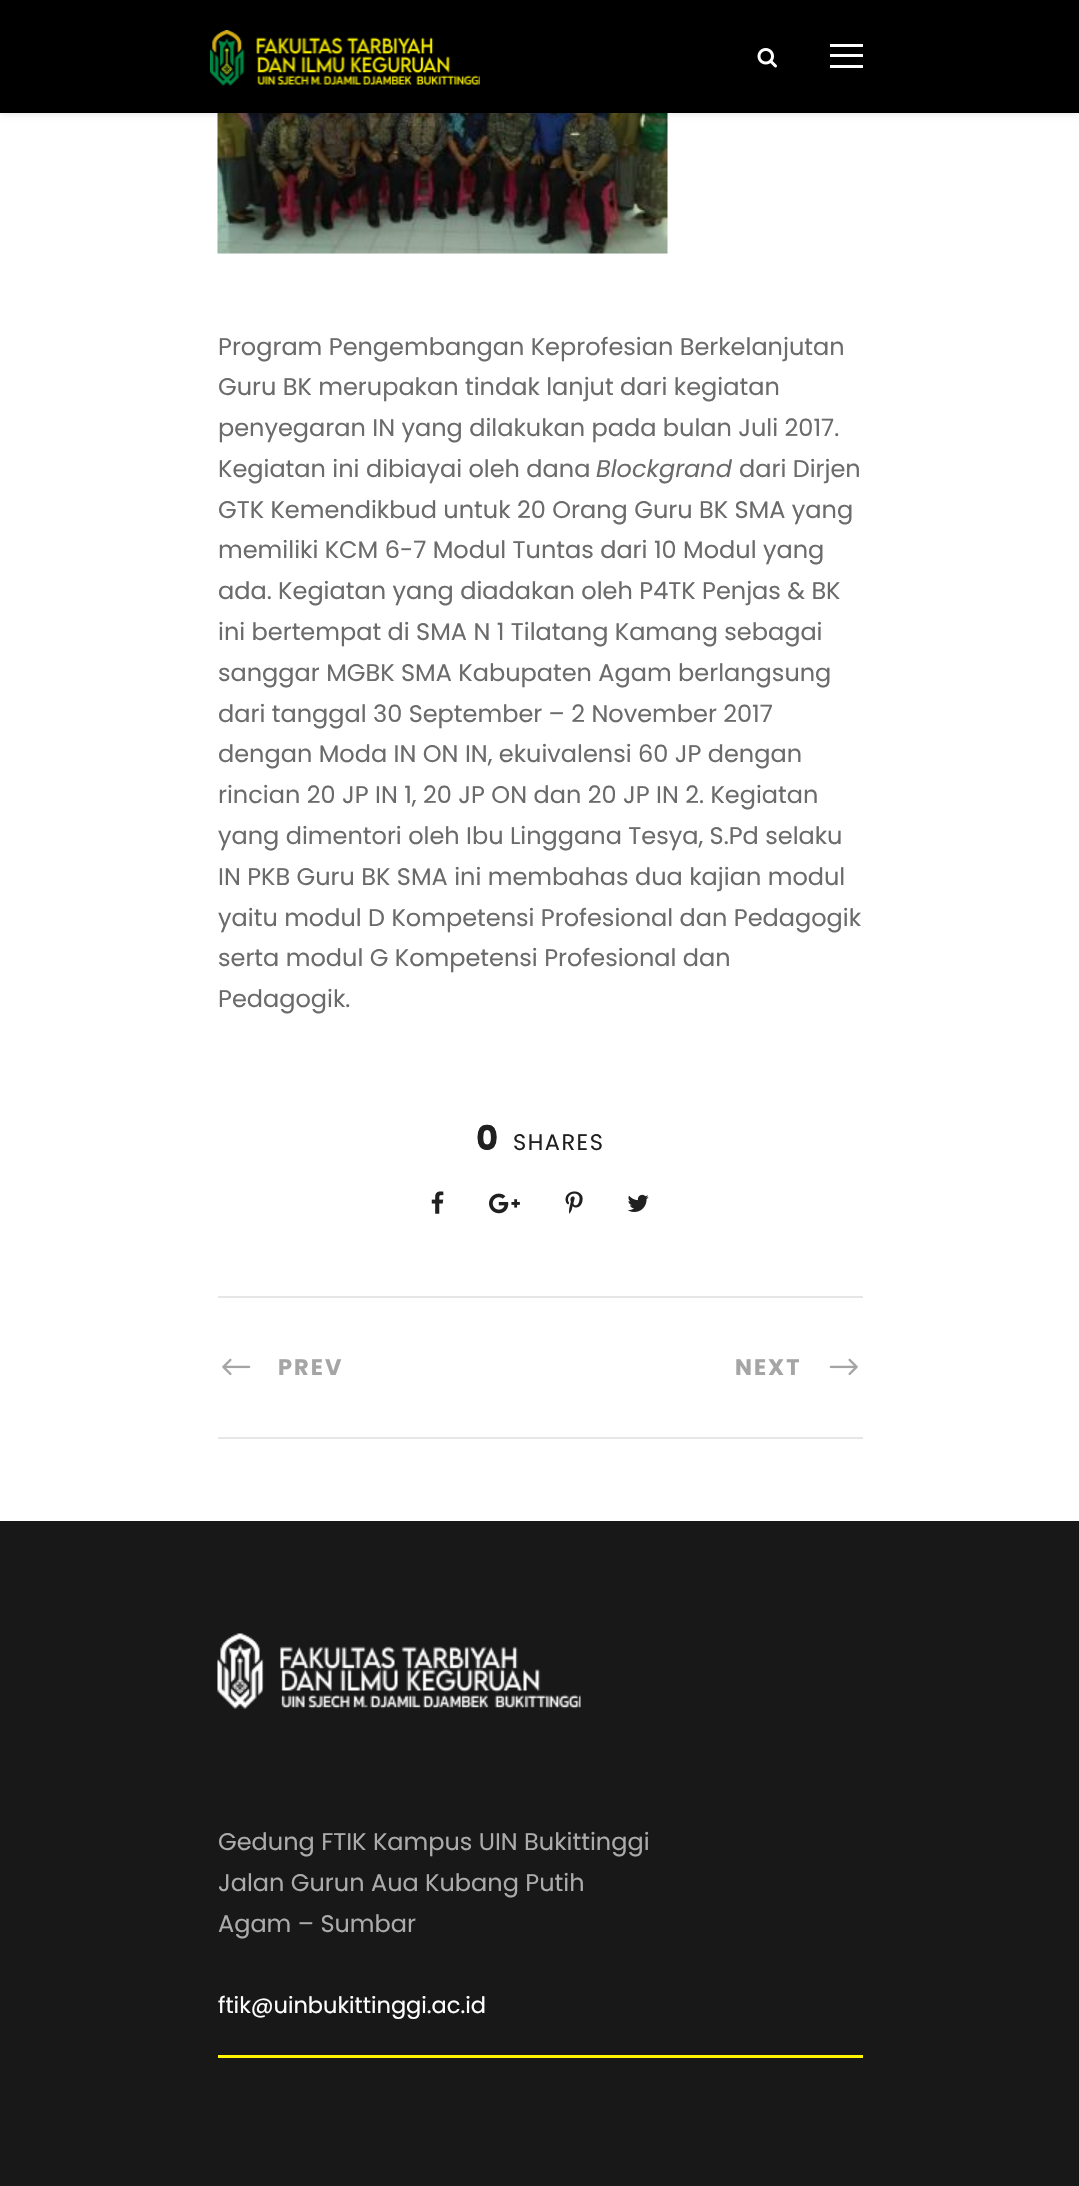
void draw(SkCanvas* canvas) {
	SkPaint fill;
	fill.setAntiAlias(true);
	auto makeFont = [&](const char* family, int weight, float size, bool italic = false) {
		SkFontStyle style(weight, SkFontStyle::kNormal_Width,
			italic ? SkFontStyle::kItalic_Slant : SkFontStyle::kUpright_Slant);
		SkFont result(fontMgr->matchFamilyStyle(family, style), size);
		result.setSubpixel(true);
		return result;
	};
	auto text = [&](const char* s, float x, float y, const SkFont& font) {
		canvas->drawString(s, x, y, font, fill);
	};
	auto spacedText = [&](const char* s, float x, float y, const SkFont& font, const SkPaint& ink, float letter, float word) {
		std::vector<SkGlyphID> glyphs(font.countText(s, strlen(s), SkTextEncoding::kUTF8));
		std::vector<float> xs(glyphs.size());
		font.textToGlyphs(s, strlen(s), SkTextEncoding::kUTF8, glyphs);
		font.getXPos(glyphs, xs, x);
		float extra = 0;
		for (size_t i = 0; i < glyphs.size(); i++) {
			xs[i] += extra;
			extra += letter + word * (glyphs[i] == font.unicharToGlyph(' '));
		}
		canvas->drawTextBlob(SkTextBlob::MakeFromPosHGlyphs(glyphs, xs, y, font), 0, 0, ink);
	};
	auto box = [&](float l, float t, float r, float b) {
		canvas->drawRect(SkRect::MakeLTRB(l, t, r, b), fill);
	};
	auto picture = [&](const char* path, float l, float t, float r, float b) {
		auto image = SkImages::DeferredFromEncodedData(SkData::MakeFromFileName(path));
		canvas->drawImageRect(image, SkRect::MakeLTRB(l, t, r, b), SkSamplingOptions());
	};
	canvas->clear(0xFFFFFFFF);
	picture("image2.png", 217, 113, 668, 254);
	fill.setColor(0x1A000000);
	fill.setMaskFilter(SkMaskFilter::MakeBlur(kNormal_SkBlurStyle, 3));
	canvas->drawRect(SkRect::MakeLTRB(0, 2, 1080, 114), fill);
	fill.setMaskFilter(nullptr);
	fill.setColor(0xFF000000);
	box(0, 0, 1079, 113);
	picture("image0.png", 210, 30, 480, 86);
	picture("image1.png", 757, 48, 777, 68);
	fill.setColor(0xFFFFFFFF);
	box(830, 44, 863, 47);
	box(830, 54, 863, 57);
	box(830, 65, 863, 68);
	picture("image3.png", 431, 1191, 444, 1214);
	picture("image4.png", 489, 1193, 520, 1214);
	picture("image5.png", 565, 1191, 583, 1214);
	picture("image6.png", 627, 1194, 649, 1212);
	fill.setColor(0xFFE6E6E6);
	box(218, 1296, 863, 1298);
	box(218, 1437, 863, 1439);
	picture("image7.png", 222, 1358, 251, 1376);
	picture("image8.png", 829, 1358, 858, 1376);
	fill.setColor(0xFF181818);
	box(0, 1521, 1079, 2186);
	picture("image9.png", 217, 1633, 581, 1709);
	fill.setColor(0xFFFFF600);
	box(218, 2055, 863, 2058);
	auto font1 = makeFont("Poppins", 400, 24);
	fill.setColor(0xFF6B6B6B);
	text("Program Pengembangan Keprofesian Berkelanjutan", 218, 355, font1);
	text("Guru BK merupakan tindak lanjut dari kegiatan", 218, 395, font1);
	text("penyegaran IN yang dilakukan pada bulan Juli 2017.", 218, 436, font1);
	text("Kegiatan ini dibiayai oleh dana", 218, 477, font1);
	auto font2 = makeFont("Poppins", 400, 24, true);
	text("Blockgrand", 596, 477, font2);
	text("dari Dirjen", 739, 477, font1);
	text("GTK Kemendikbud untuk 20 Orang Guru BK SMA yang", 218, 518, font1);
	text("memiliki KCM 6-7 Modul Tuntas dari 10 Modul yang", 218, 558, font1);
	text("ada. Kegiatan yang diadakan oleh P4TK Penjas & BK", 218, 599, font1);
	text("ini bertempat di SMA N 1 Tilatang Kamang sebagai", 218, 640, font1);
	text("sanggar MGBK SMA Kabupaten Agam berlangsung", 218, 681, font1);
	text("dari tanggal 30 September – 2 November 2017", 218, 722, font1);
	text("dengan Moda IN ON IN, ekuivalensi 60 JP dengan", 218, 762, font1);
	text("rincian 20 JP IN 1, 20 JP ON dan 20 JP IN 2. Kegiatan", 218, 803, font1);
	text("yang dimentori oleh Ibu Linggana Tesya, S.Pd selaku", 218, 844, font1);
	text("IN PKB Guru BK SMA ini membahas dua kajian modul", 218, 885, font1);
	text("yaitu modul D Kompetensi Profesional dan Pedagogik", 218, 926, font1);
	text("serta modul G Kompetensi Profesional dan", 218, 966, font1);
	text("Pedagogik.", 218, 1007, font1);
	auto font3 = makeFont("Poppins", 700, 34);
	fill.setColor(0xFF202020);
	text("0", 476, 1150, font3);
	auto font4 = makeFont("Poppins", 400, 22.5f);
	spacedText("SHARES", 513, 1150, font4, fill, 1.5f, 0);
	auto font5 = makeFont("Poppins", 700, 22.5f);
	fill.setColor(0xFFA5A5A5);
	spacedText("PREV", 278, 1375, font5, fill, 2, 0);
	spacedText("NEXT", 735, 1375, font5, fill, 2, 0);
	fill.setColor(0xFFABABAB);
	text("Gedung FTIK Kampus UIN Bukittinggi", 218, 1850, font1);
	text("Jalan Gurun Aua Kubang Putih", 218, 1891, font1);
	text("Agam – Sumbar", 218, 1932, font1);
	fill.setColor(0xFFFFFFFF);
	text("ftik@uinbukittinggi.ac.id", 218, 2013, font4);
}
